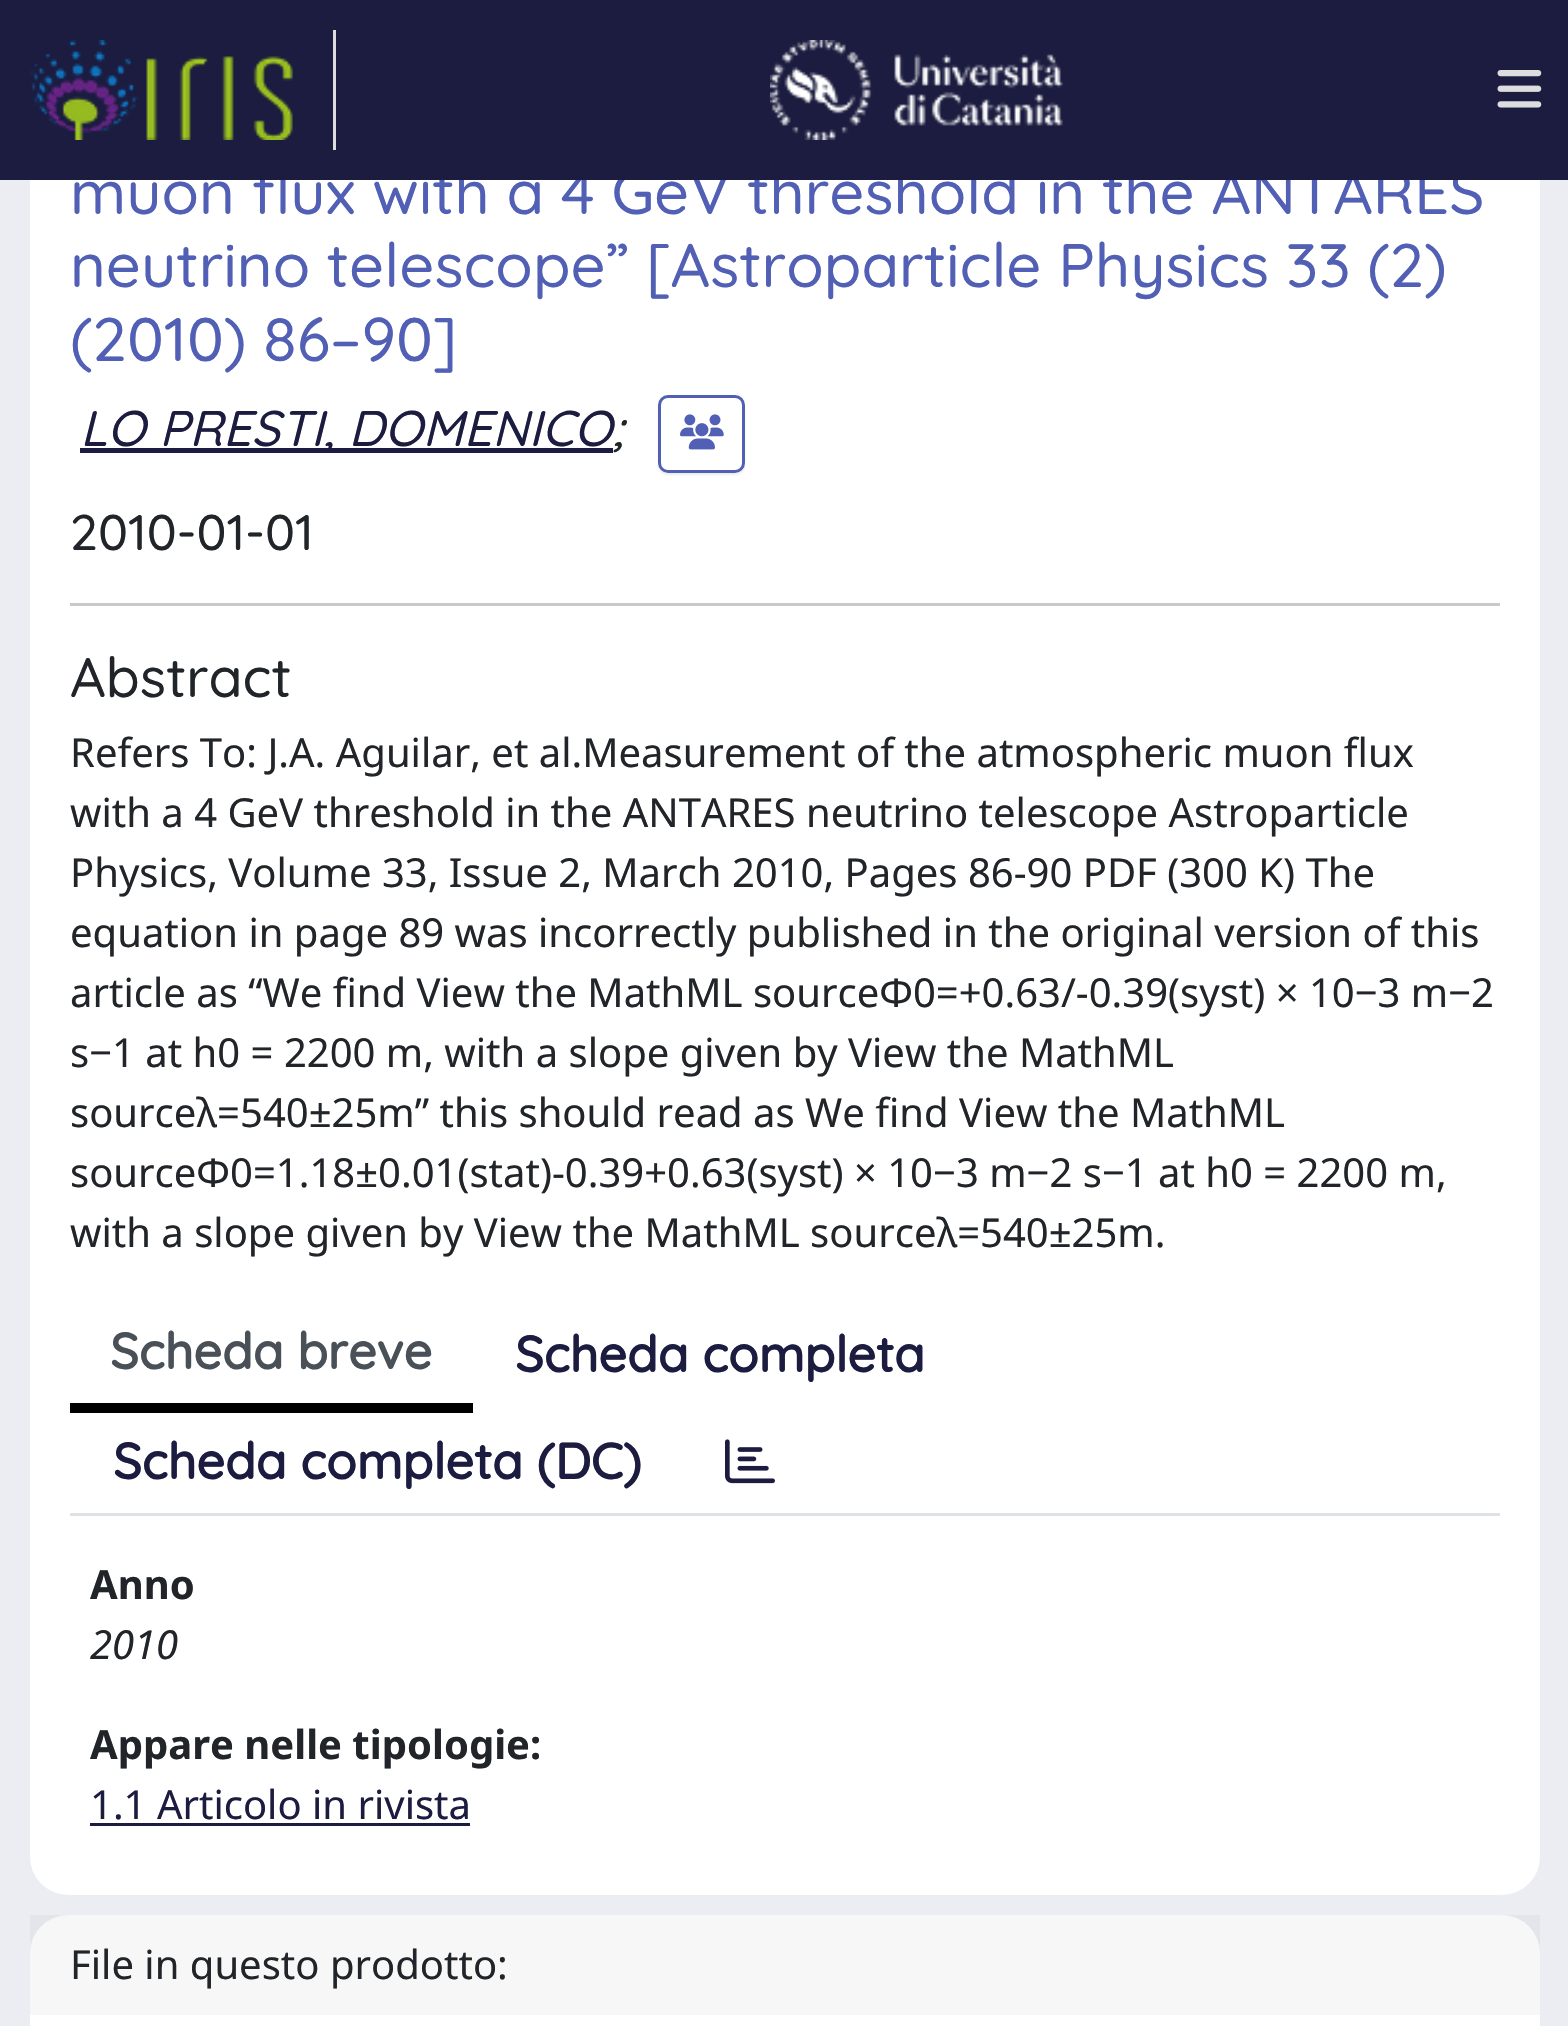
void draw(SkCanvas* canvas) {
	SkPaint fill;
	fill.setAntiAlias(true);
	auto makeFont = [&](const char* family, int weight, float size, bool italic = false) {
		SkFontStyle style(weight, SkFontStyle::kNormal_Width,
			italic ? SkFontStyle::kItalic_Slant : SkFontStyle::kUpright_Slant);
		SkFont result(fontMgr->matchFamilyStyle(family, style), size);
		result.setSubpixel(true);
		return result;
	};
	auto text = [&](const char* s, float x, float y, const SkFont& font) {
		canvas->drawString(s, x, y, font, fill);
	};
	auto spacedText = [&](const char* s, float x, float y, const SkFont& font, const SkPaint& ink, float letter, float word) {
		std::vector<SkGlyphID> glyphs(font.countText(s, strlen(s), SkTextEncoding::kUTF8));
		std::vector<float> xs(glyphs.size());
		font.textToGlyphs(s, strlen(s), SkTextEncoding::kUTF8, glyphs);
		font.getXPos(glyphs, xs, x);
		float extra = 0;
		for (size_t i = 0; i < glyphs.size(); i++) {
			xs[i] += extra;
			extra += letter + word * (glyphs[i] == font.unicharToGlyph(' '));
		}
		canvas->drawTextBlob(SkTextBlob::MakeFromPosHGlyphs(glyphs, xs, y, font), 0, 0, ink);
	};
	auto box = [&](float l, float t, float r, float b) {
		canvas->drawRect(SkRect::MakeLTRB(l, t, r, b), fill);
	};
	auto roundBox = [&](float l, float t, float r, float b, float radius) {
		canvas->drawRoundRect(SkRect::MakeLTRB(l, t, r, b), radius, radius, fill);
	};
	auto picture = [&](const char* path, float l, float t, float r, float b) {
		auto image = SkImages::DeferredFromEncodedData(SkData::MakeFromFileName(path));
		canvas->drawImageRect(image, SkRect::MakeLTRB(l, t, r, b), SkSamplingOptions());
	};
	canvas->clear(0xFFECEDF2);
	fill.setColor(0xFFFFFFFF);
	roundBox(30, 40, 1540, 1895, 38);
	fill.setColor(0xFF1B1C40);
	box(80, 448, 613, 453);
	canvas->save();
	canvas->clipPath(SkPathBuilder(SkPathFillType::kEvenOdd).moveTo(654, 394).lineTo(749, 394).lineTo(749, 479).lineTo(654, 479).close().moveTo(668, 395).lineTo(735, 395).cubicTo(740.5f, 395, 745, 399.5f, 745, 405).lineTo(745, 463).cubicTo(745, 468.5f, 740.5f, 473, 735, 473).lineTo(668, 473).cubicTo(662.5f, 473, 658, 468.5f, 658, 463).lineTo(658, 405).cubicTo(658, 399.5f, 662.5f, 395, 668, 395).close().detach(), true);
	fill.setColor(0x12000000);
	fill.setMaskFilter(SkMaskFilter::MakeBlur(kNormal_SkBlurStyle, 1));
	canvas->drawRoundRect(SkRect::MakeLTRB(658, 398, 745, 475), 10, 10, fill);
	fill.setMaskFilter(nullptr);
	canvas->restore();
	fill.setStyle(SkPaint::kStroke_Style);
	fill.setStrokeWidth(3);
	fill.setColor(0xFF515FB5);
	canvas->drawRoundRect(SkRect::MakeLTRB(659.5f, 396.5f, 743.5f, 471.5f), 8.5f, 8.5f, fill);
	picture("image3.png", 680, 414, 724, 450);
	fill.setStyle(SkPaint::kFill_Style);
	fill.setColor(0xFFC8C9CA);
	box(70, 603, 1500, 606);
	fill.setColor(0xFFDEE2E6);
	box(70, 1513, 1500, 1516);
	fill.setColor(0xFF000000);
	box(70, 1403, 473, 1413);
	picture("image4.png", 725, 1439, 775, 1484);
	fill.setColor(0xFF1B1C40);
	box(90, 1823, 470, 1826);
	fill.setColor(0xFFFFFFFF);
	roundBox(30, 1915, 1540, 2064, 38);
	fill.setColor(0x08000000);
	box(30, 1915, 1540, 2015);
	auto font1 = makeFont("Quicksand", 500, 61.4f);
	fill.setColor(0xFF515FB5);
	spacedText("muon flux with a 4 GeV threshold in the ANTARES", 70, 214, font1, fill, 0, -0.1f);
	fill.setColor(0xFF1B1C40);
	box(0, 0, 1568, 180);
	picture("image2.png", 1497, 70, 1542, 108);
	picture("image1.png", 770, 40, 1063, 140);
	picture("image0.png", 30, 40, 293, 140);
	fill.setColor(0xFFDDDDDD);
	box(333, 30, 336, 150);
	fill.setColor(0xFF515FB5);
	spacedText("neutrino telescope” [Astroparticle Physics 33 (2)", 70, 287, font1, fill, 0, -0.25f);
	text("(2010) 86–90]", 70, 361, font1);
	auto font2 = makeFont("Quicksand", 500, 50, true);
	fill.setColor(0xFF1B1C40);
	text("LO PRESTI, DOMENICO", 80, 446, font2);
	fill.setColor(0xFF212529);
	text(";", 612, 446, font2);
	auto font3 = makeFont("Quicksand", 500, 50);
	text("2010-01-01", 70, 550, font3);
	auto font4 = makeFont("Quicksand", 500, 55.5f);
	text("Abstract", 70, 697, font4);
	auto font5 = makeFont("Noto Sans", 400, 40);
	text("Refers To: J.A. Aguilar, et al.Measurement of the atmospheric muon flux", 70, 767, font5);
	text("with a 4 GeV threshold in the ANTARES neutrino telescope Astroparticle", 70, 827, font5);
	text("Physics, Volume 33, Issue 2, March 2010, Pages 86-90 PDF (300 K) The", 70, 887, font5);
	text("equation in page 89 was incorrectly published in the original version of this", 70, 947, font5);
	text("article as “We find View the MathML sourceΦ0=+0.63/-0.39(syst) × 10−3 m−2", 70, 1007, font5);
	text("s−1 at h0 = 2200 m, with a slope given by View the MathML", 70, 1067, font5);
	text("sourceλ=540±25m” this should read as We find View the MathML", 70, 1127, font5);
	text("sourceΦ0=1.18±0.01(stat)-0.39+0.63(syst) × 10−3 m−2 s−1 at h0 = 2200 m,", 70, 1187, font5);
	text("with a slope given by View the MathML sourceλ=540±25m.", 70, 1247, font5);
	auto font6 = makeFont("Quicksand", 700, 50);
	fill.setColor(0xFF495057);
	text("Scheda breve", 110, 1369, font6);
	fill.setColor(0xFF1B1C40);
	text("Scheda completa", 515, 1372, font6);
	text("Scheda completa (DC)", 113, 1479, font6);
	auto font7 = makeFont("Noto Sans", 700, 40);
	fill.setColor(0xFF212529);
	text("Anno", 90, 1599, font7);
	auto font8 = makeFont("Noto Sans", 400, 40, true);
	text("2010", 90, 1659, font8);
	text("Appare nelle tipologie:", 90, 1759, font7);
	fill.setColor(0xFF1B1C40);
	text("1.1 Articolo in rivista", 90, 1819, font5);
	fill.setColor(0xFF212529);
	text("File in questo prodotto:", 70, 1979, font5);
}
